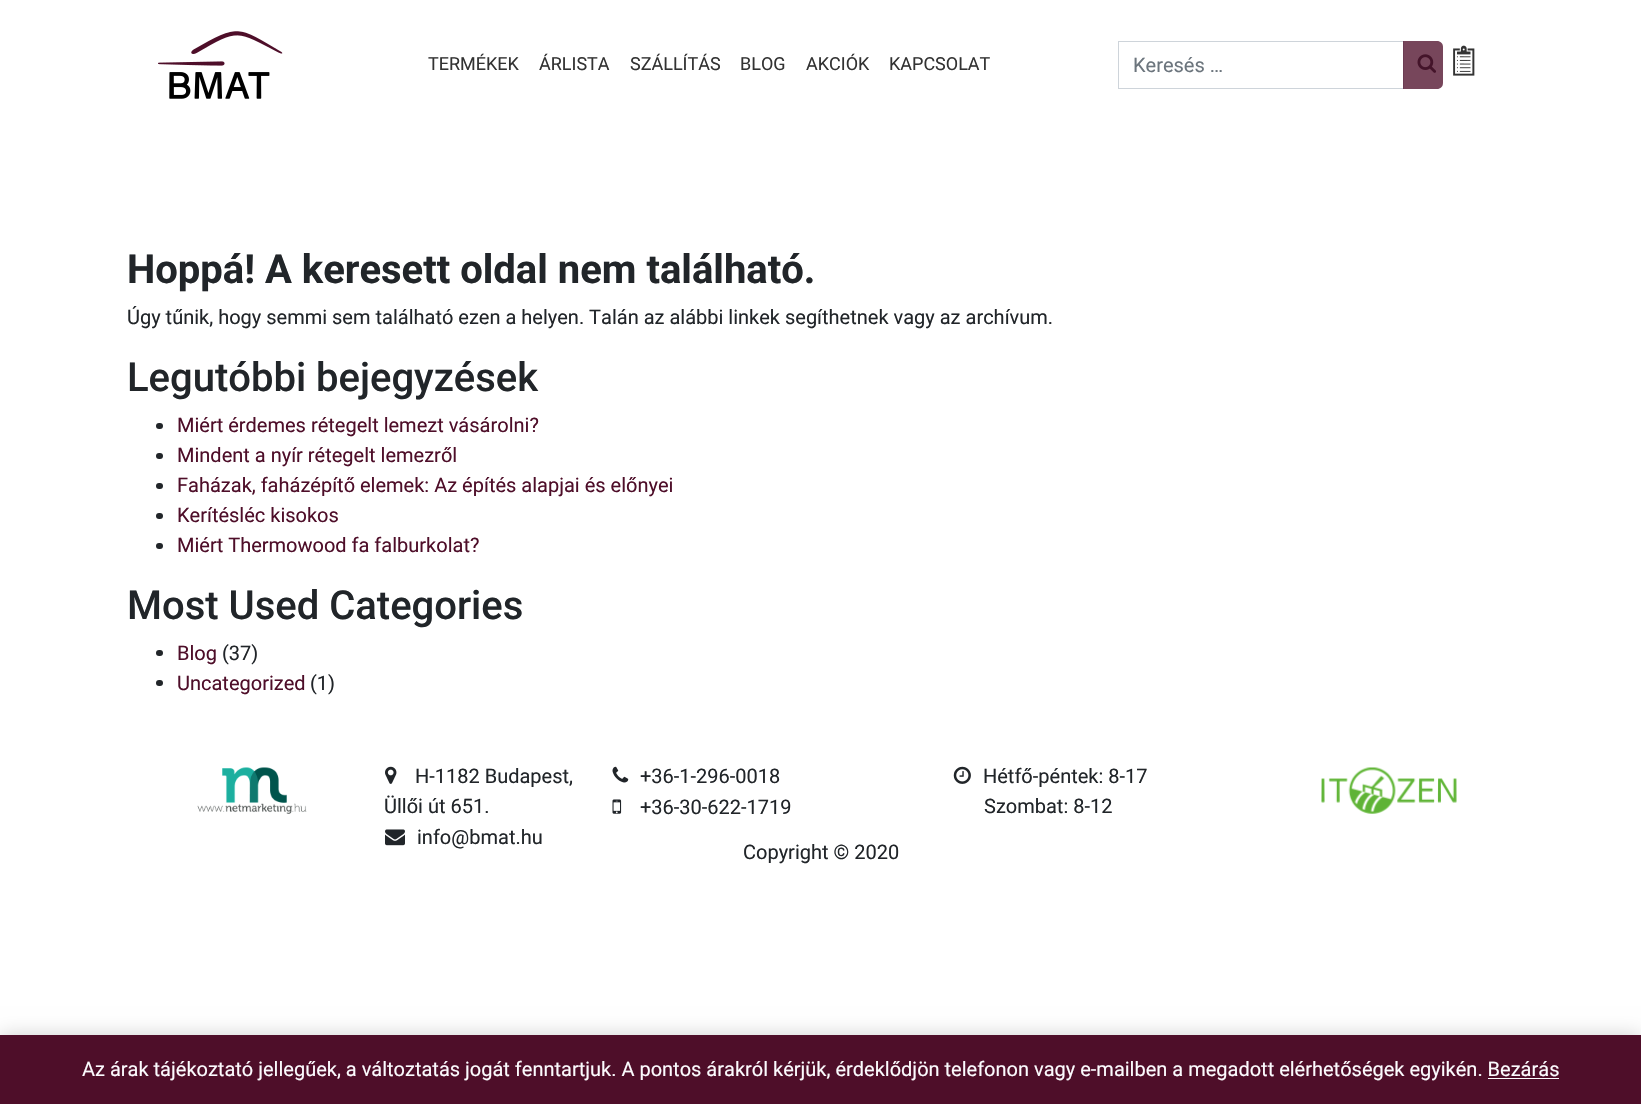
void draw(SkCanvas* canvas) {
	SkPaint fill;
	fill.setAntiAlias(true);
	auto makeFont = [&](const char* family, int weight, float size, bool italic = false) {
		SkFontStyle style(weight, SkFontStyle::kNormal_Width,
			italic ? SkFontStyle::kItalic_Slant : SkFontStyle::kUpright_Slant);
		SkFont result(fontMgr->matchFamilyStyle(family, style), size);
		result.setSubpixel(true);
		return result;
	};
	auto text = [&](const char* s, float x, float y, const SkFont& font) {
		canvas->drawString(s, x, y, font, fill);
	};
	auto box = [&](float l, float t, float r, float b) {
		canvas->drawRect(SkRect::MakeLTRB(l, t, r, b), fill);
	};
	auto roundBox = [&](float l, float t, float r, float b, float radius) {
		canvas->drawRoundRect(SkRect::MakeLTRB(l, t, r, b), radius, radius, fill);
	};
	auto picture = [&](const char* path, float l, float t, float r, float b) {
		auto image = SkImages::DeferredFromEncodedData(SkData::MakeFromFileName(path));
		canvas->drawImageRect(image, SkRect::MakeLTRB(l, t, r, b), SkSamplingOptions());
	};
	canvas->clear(0xFFFFFFFF);
	picture("image0.png", 158, 31, 283, 99);
	fill.setStyle(SkPaint::kStroke_Style);
	fill.setStrokeWidth(1);
	fill.setColor(0xFFCED4DA);
	canvas->drawRect(SkRect::MakeLTRB(1118.5f, 41.5f, 1403.5f, 88.5f), fill);
	picture("image1.png", 1417, 54, 1437, 73);
	fill.setStyle(SkPaint::kFill_Style);
	fill.setColor(0xC44E0E29);
	canvas->drawPath(SkPathBuilder().moveTo(1403, 41).lineTo(1437, 41).cubicTo(1440.5f, 41, 1443, 43.5f, 1443, 47).lineTo(1443, 83).cubicTo(1443, 86.5f, 1440.5f, 89, 1437, 89).lineTo(1403, 89).close().detach(), fill);
	picture("image2.png", 1453, 45, 1475, 76);
	fill.setColor(0xFF212529);
	roundBox(156, 423, 163, 429, 3);
	roundBox(156, 453, 163, 459, 3);
	roundBox(156, 483, 163, 489, 3);
	roundBox(156, 513, 163, 519, 3);
	roundBox(156, 543, 163, 549, 3);
	roundBox(156, 650, 163, 656, 3);
	roundBox(156, 680, 163, 686, 3);
	picture("image3.png", 197, 767, 307, 814);
	picture("image4.png", 385, 766, 397, 784);
	picture("image5.png", 385, 829, 405, 846);
	picture("image6.png", 612, 766, 629, 783);
	picture("image7.png", 612, 799, 622, 814);
	picture("image8.png", 953, 766, 971, 784);
	picture("image9.png", 1321, 767, 1457, 814);
	fill.setColor(0x33000000);
	fill.setMaskFilter(SkMaskFilter::MakeBlur(kNormal_SkBlurStyle, 10));
	canvas->drawRect(SkRect::MakeLTRB(0, 1036, 1641, 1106), fill);
	fill.setMaskFilter(nullptr);
	fill.setColor(0xFF4E0E29);
	box(0, 1035, 1641, 1104);
	fill.setColor(0xFFFCFBFE);
	box(1488, 1078, 1559, 1079);
	auto font1 = makeFont("Roboto", 400, 18);
	fill.setColor(0xFF333333);
	text("TERMÉKEK", 428, 70, font1);
	text("ÁRLISTA", 539, 70, font1);
	text("SZÁLLÍTÁS", 630, 70, font1);
	text("BLOG", 740, 70, font1);
	text("AKCIÓK", 806, 70, font1);
	text("KAPCSOLAT", 889, 70, font1);
	auto font2 = makeFont("Roboto", 400, 20);
	fill.setColor(0xFF6C757D);
	text("Keresés …", 1133, 72, font2);
	auto font3 = makeFont("Roboto", 700, 40);
	fill.setColor(0xFF212529);
	text("Hoppá! A keresett oldal nem található.", 127, 283, font3);
	text("Úgy tűnik, hogy semmi sem található ezen a helyen. Talán az alábbi linkek segíthetnek vagy az archívum.", 127, 324, font2);
	auto font4 = makeFont("Roboto", 500, 40);
	text("Legutóbbi bejegyzések", 127, 391, font4);
	fill.setColor(0xFF4E0E29);
	text("Miért érdemes rétegelt lemezt vásárolni?", 177, 432, font2);
	text("Mindent a nyír rétegelt lemezről", 177, 462, font2);
	text("Faházak, faházépítő elemek: Az építés alapjai és előnyei", 177, 492, font2);
	text("Kerítésléc kisokos", 177, 522, font2);
	text("Miért Thermowood fa falburkolat?", 177, 552, font2);
	fill.setColor(0xFF212529);
	text("Most Used Categories", 127, 619, font4);
	fill.setColor(0xFF4E0E29);
	text("Blog", 177, 660, font2);
	fill.setColor(0xFF212529);
	text("(37)", 222, 660, font2);
	fill.setColor(0xFF4E0E29);
	text("Uncategorized", 177, 690, font2);
	fill.setColor(0xFF212529);
	text("(1)", 310, 690, font2);
	text("H-1182 Budapest,", 415, 783, font2);
	text("Üllői út 651.", 384, 813, font2);
	text("info@bmat.hu", 417, 844, font2);
	text("+36-1-296-0018", 640, 783, font2);
	text("+36-30-622-1719", 640, 814, font2);
	text("Hétfő-péntek: 8-17", 983, 783, font2);
	text("Szombat: 8-12", 984, 813, font2);
	text("Copyright © 2020", 743, 859, font2);
	fill.setColor(0xFFFCFBFE);
	text("Az árak tájékoztató jellegűek, a változtatás jogát fenntartjuk. A pontos árakról kérjük, érdeklődjön telefonon vagy e-mailben a megadott elérhetőségek egyikén. Bezárás", 82, 1076, font2);
}
